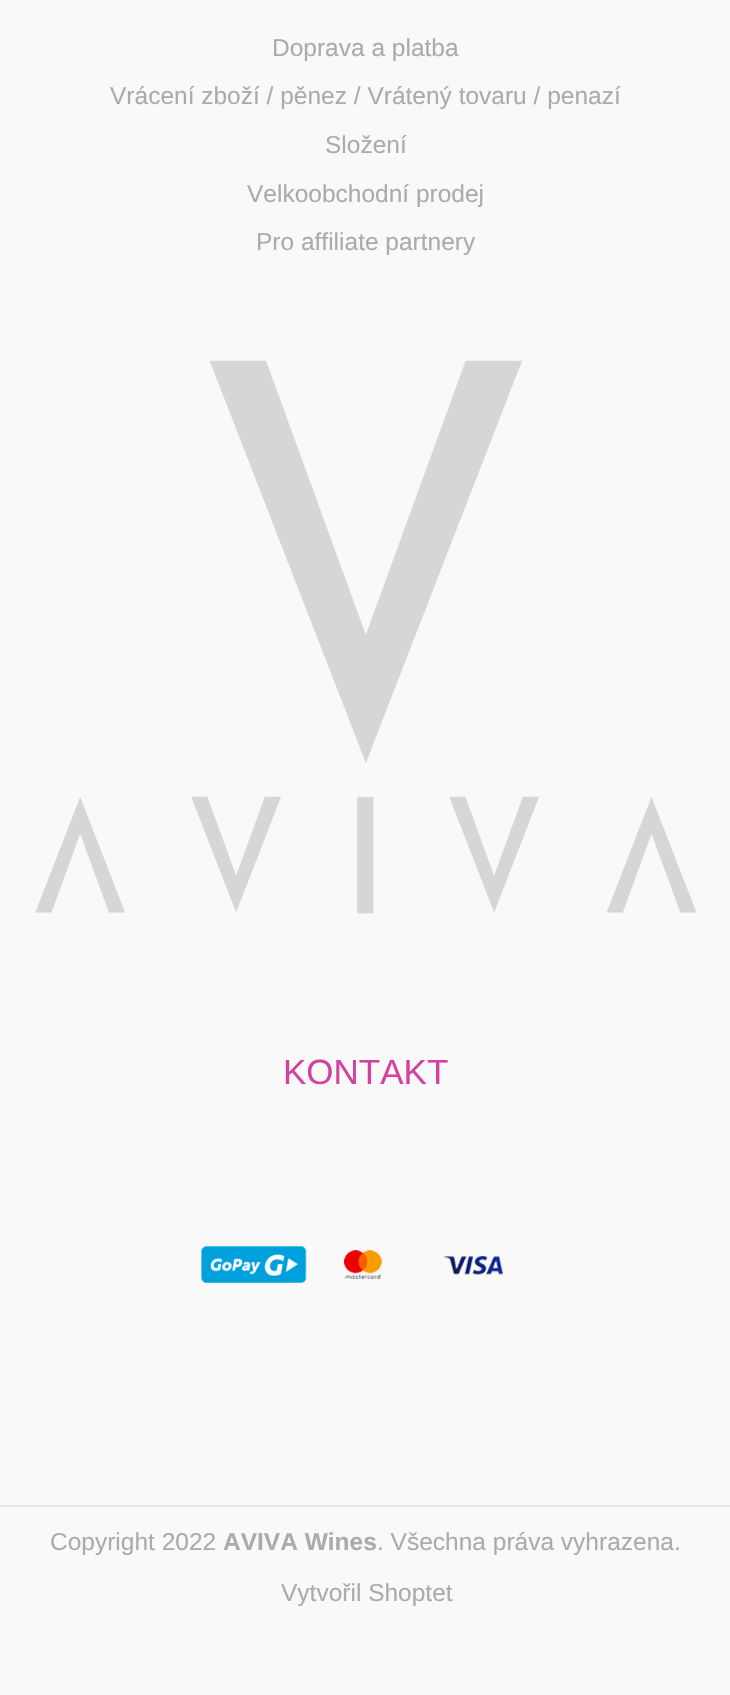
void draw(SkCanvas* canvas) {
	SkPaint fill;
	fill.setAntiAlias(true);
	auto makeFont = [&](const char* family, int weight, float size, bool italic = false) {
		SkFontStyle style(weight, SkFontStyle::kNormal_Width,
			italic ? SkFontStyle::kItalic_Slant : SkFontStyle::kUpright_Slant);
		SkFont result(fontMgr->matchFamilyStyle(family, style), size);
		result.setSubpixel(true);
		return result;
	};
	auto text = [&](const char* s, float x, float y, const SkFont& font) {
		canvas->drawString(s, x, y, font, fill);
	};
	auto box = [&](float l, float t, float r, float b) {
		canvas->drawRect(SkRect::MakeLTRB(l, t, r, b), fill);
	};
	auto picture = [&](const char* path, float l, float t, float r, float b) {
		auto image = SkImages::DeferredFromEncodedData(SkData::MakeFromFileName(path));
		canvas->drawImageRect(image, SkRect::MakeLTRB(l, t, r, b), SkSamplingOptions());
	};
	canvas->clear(0xFFF9F9F9);
	picture("image0.png", 35, 360, 696, 914);
	picture("image1.png", 201, 1246, 307, 1283);
	picture("image2.png", 344, 1250, 382, 1279);
	picture("image3.png", 444, 1256, 503, 1275);
	fill.setColor(0xFFE6E6E6);
	box(0, 1505, 730, 1507);
	picture("image4.png", 283, 1591, 284, 1593);
	auto font1 = makeFont("Liberation Sans", 400, 24.5f);
	fill.setColor(0xFFABABAB);
	text("Doprava a platba", 272, 56, font1);
	text("Vrácení zboží / pěnez / Vrátený tovaru / penazí", 110, 104, font1);
	text("Složení", 325, 153, font1);
	text("Velkoobchodní prodej", 247, 202, font1);
	text("Pro affiliate partnery", 256, 250, font1);
	auto font2 = makeFont("Liberation Sans", 400, 35);
	fill.setColor(0xFFD5419E);
	text("KONTAKT", 283, 1084, font2);
	fill.setColor(0xFFABABAB);
	text("Copyright 2022", 50, 1550, font1);
	auto font3 = makeFont("Liberation Sans", 700, 24.5f);
	text("AVIVA Wines", 223, 1550, font3);
	text(". Všechna práva vyhrazena.", 377, 1550, font1);
	text("Vytvořil Shoptet", 281, 1601, font1);
}
